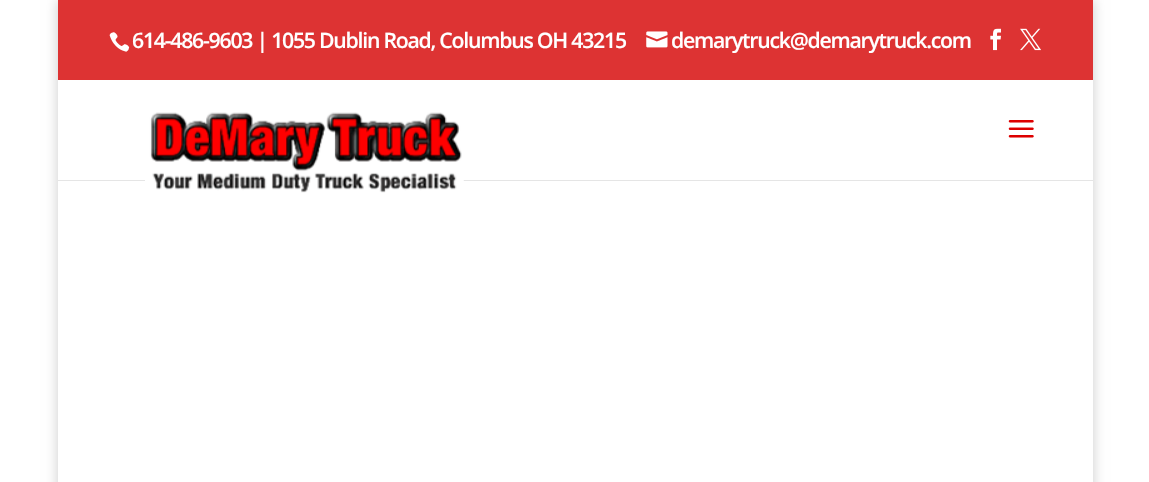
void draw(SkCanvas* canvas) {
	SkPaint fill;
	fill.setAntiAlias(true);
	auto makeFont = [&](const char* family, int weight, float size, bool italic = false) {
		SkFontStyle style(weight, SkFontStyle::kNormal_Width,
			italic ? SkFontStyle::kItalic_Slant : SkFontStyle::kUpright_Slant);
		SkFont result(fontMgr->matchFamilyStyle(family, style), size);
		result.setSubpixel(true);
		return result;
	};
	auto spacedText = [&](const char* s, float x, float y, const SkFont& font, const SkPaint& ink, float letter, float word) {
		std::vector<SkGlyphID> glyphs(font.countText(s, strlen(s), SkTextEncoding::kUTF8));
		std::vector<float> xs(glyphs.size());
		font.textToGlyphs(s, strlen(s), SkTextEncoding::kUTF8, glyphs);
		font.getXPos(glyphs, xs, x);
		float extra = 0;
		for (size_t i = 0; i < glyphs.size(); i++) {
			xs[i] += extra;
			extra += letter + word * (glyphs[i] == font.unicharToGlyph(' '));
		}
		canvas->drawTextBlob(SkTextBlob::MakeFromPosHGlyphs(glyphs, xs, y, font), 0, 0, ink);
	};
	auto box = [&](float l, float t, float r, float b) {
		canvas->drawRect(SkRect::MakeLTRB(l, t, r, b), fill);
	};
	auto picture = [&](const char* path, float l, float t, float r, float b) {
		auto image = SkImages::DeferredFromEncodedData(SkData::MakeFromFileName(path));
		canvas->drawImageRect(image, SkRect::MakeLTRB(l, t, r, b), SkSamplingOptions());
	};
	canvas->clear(0xFFFFFFFF);
	canvas->save();
	canvas->clipPath(SkPathBuilder(SkPathFillType::kEvenOdd).moveTo(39, 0).lineTo(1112, 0).lineTo(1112, 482).lineTo(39, 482).close().moveTo(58, 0).lineTo(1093, 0).lineTo(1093, 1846).lineTo(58, 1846).close().detach(), true);
	fill.setColor(0x33000000);
	fill.setMaskFilter(SkMaskFilter::MakeBlur(kNormal_SkBlurStyle, 6));
	canvas->drawRect(SkRect::MakeLTRB(58, 0, 1093, 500), fill);
	fill.setMaskFilter(nullptr);
	canvas->restore();
	fill.setColor(0xFFDD3333);
	box(58, 0, 1093, 80);
	picture("image0.png", 109, 32, 130, 52);
	picture("image1.png", 646, 31, 668, 48);
	picture("image2.png", 990, 28, 1001, 51);
	picture("image3.png", 1020, 28, 1041, 51);
	fill.setColor(0x1A000000);
	canvas->drawPath(SkPathBuilder().moveTo(58, 180).lineTo(58, 181).lineTo(1093, 181).lineTo(1093, 81).lineTo(1092, 81).lineTo(1092, 180).close().detach(), fill);
	fill.setColor(0xFFFFFFFF);
	box(1092, 80, 1093, 180);
	picture("image4.png", 145, 112, 464, 193);
	picture("image5.png", 1008, 120, 1034, 138);
	box(1092, 400, 1093, 482);
	auto font1 = makeFont("Open Sans", 600, 21.25f);
	spacedText("614-486-9603 | 1055 Dublin Road, Columbus OH 43215", 132, 48, font1, fill, -1.25f, 0);
	spacedText("demarytruck@demarytruck.com", 671, 48, font1, fill, -1.25f, 0);
}
